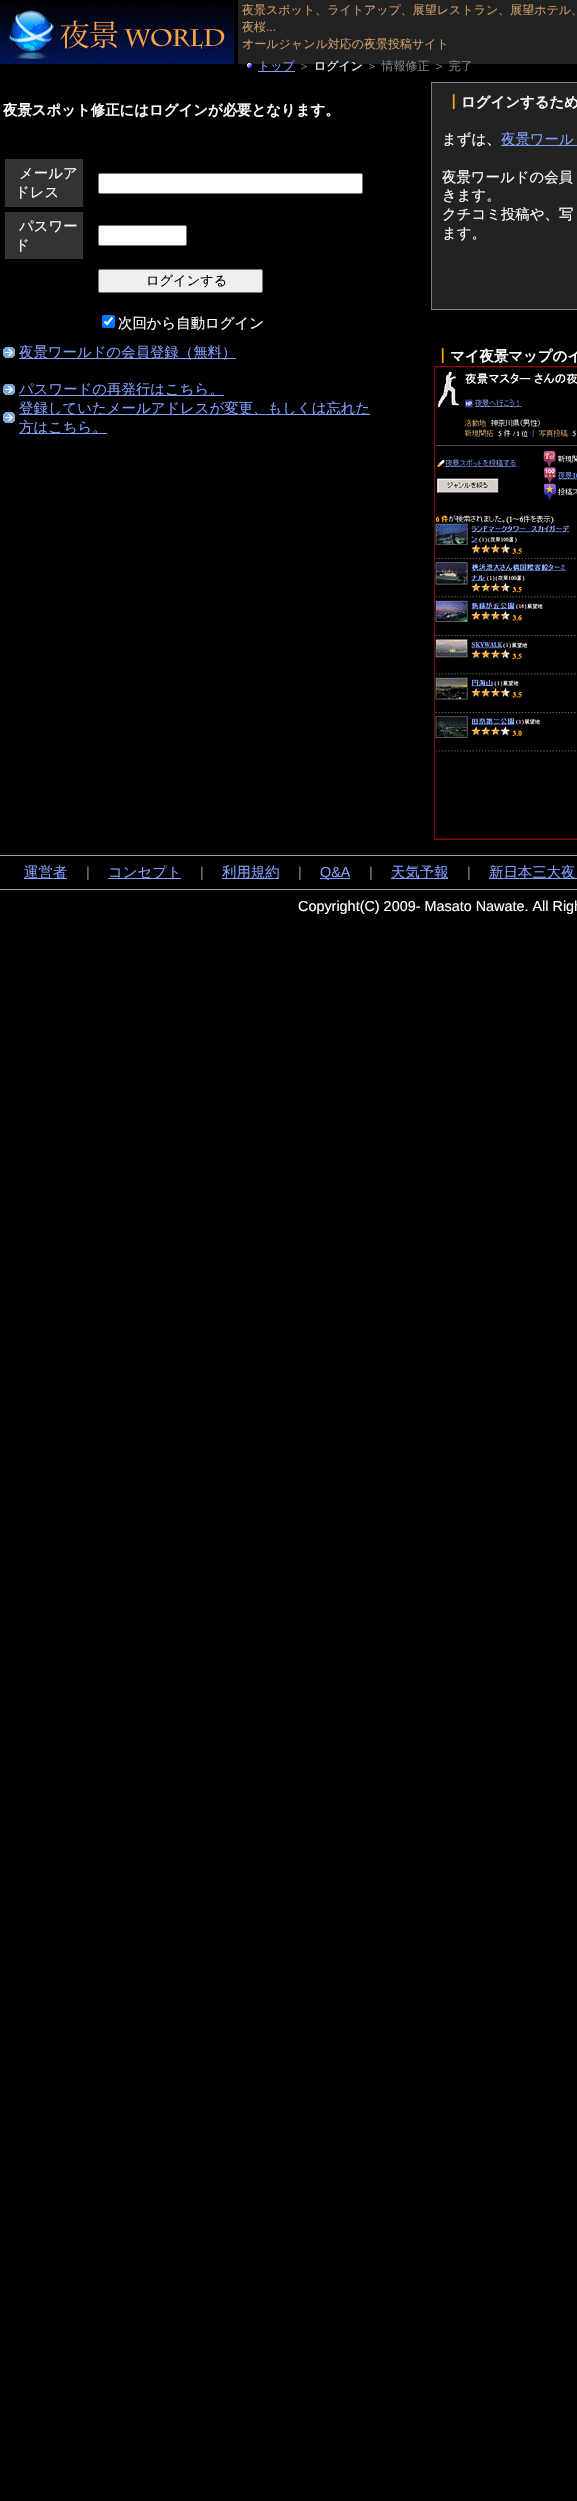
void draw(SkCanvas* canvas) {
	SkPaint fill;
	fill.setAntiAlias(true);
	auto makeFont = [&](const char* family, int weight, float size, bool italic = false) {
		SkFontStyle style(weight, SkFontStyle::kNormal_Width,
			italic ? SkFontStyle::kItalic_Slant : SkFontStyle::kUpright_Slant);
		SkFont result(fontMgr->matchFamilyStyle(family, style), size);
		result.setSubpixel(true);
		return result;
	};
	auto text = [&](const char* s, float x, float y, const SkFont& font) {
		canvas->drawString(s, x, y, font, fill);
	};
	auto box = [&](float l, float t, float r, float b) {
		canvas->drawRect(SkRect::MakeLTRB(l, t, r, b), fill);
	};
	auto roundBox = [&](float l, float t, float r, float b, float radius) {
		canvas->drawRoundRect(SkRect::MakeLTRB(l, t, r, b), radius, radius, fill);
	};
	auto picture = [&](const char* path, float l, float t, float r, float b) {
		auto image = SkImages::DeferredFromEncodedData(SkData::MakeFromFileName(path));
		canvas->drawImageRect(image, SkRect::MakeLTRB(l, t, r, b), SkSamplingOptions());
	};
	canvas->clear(0xFF000000);
	picture("image0.png", 0, 4, 234, 64);
	fill.setColor(0xFF222222);
	box(238, 0, 577, 64);
	picture("image1.png", 247, 63, 252, 68);
	fill.setColor(0xFF809FFF);
	box(258, 71, 295, 72);
	fill.setColor(0xFF333333);
	box(5, 159, 83, 207);
	fill.setColor(0xFFFFFFFF);
	canvas->drawRoundRect(SkRect::MakeLTRB(98.5f, 173.5f, 362.5f, 193.5f), 1.5f, 1.5f, fill);
	fill.setStyle(SkPaint::kStroke_Style);
	fill.setStrokeWidth(1);
	fill.setColor(0xFF767676);
	canvas->drawRoundRect(SkRect::MakeLTRB(98.5f, 173.5f, 362.5f, 193.5f), 1.5f, 1.5f, fill);
	fill.setStyle(SkPaint::kFill_Style);
	fill.setColor(0xFF333333);
	box(5, 212, 83, 259);
	fill.setColor(0xFFFFFFFF);
	canvas->drawRoundRect(SkRect::MakeLTRB(98.5f, 225.5f, 186.5f, 245.5f), 1.5f, 1.5f, fill);
	fill.setStyle(SkPaint::kStroke_Style);
	fill.setColor(0xFF767676);
	canvas->drawRoundRect(SkRect::MakeLTRB(98.5f, 225.5f, 186.5f, 245.5f), 1.5f, 1.5f, fill);
	fill.setStyle(SkPaint::kFill_Style);
	fill.setColor(0xFFEFEFEF);
	canvas->drawRoundRect(SkRect::MakeLTRB(98.5f, 269.5f, 262.5f, 292.5f), 1.5f, 1.5f, fill);
	fill.setStyle(SkPaint::kStroke_Style);
	fill.setColor(0xFF767676);
	canvas->drawRoundRect(SkRect::MakeLTRB(98.5f, 269.5f, 262.5f, 292.5f), 1.5f, 1.5f, fill);
	fill.setStyle(SkPaint::kFill_Style);
	fill.setColor(0xFF0075FF);
	roundBox(102, 315, 115, 328, 2);
	fill.setStyle(SkPaint::kStroke_Style);
	fill.setStrokeWidth(2.1f);
	fill.setColor(0xFFFFFFFF);
	canvas->drawPath(SkPathBuilder().moveTo(104.5f, 321.5f).lineTo(107, 324).lineTo(112.5f, 317.5f).detach(), fill);
	picture("image2.png", 3, 347, 15, 358);
	fill.setStyle(SkPaint::kFill_Style);
	fill.setColor(0xFF809FFF);
	box(19, 358, 236, 359);
	picture("image2.png", 3, 384, 15, 395);
	box(19, 395, 224, 396);
	picture("image2.png", 3, 412, 15, 423);
	box(19, 414, 370, 415);
	box(19, 433, 107, 434);
	fill.setColor(0xFF808080);
	box(431, 82, 577, 83);
	box(431, 309, 577, 310);
	box(431, 82, 432, 310);
	fill.setColor(0xFF222222);
	box(432, 83, 577, 309);
	fill.setColor(0xFF809FFF);
	box(501, 145, 577, 146);
	picture("image3.png", 434, 366, 577, 840);
	fill.setColor(0xFF9F9F9F);
	box(0, 855, 577, 856);
	fill.setColor(0xFF809FFF);
	box(24, 878, 67, 879);
	box(108, 878, 181, 879);
	box(222, 878, 279, 879);
	box(320, 878, 350, 879);
	box(391, 878, 448, 879);
	box(489, 878, 577, 879);
	fill.setColor(0xFF9F9F9F);
	box(0, 889, 577, 890);
	auto font1 = makeFont("WenQuanYi Zen Hei", 500, 12);
	fill.setColor(0xFFCC9966);
	text("夜景スポット、ライトアップ、展望レストラン、展望ホテル、", 242, 14, font1);
	text("夜桜", 242, 31, font1);
	auto font2 = makeFont("Liberation Sans", 400, 12);
	text("...", 266, 31, font2);
	text("オールジャンル対応の夜景投稿サイト", 242, 48, font1);
	fill.setColor(0xFF809FFF);
	text("トップ", 258, 70, font1);
	fill.setColor(0xFF808080);
	text("＞", 298, 70, font1);
	fill.setColor(0xFFFFFFFF);
	text("ログイン", 314, 70, font1);
	fill.setColor(0xFF808080);
	text("＞ 情報修正 ＞ 完了", 366, 70, font1);
	auto font3 = makeFont("WenQuanYi Zen Hei", 700, 14.4f);
	fill.setColor(0xFFFFFFFF);
	text("夜景スポット修正にはログインが必要となります。", 3, 115, font3);
	auto font4 = makeFont("WenQuanYi Zen Hei", 500, 14.4f);
	text("メールア", 19, 178, font4);
	text("ドレス", 15, 197, font4);
	text("パスワー", 19, 231, font4);
	text("ド", 15, 250, font4);
	auto font5 = makeFont("WenQuanYi Zen Hei", 500, 13.25f);
	fill.setColor(0xFF000000);
	text("ログインする", 146, 285, font5);
	fill.setColor(0xFFFFFFFF);
	text("次回から自動ログイン", 118, 328, font4);
	fill.setColor(0xFF809FFF);
	text("夜景ワールドの会員登録（無料）", 19, 357, font4);
	text("パスワードの再発行はこちら。", 19, 394, font4);
	text("登録していたメールアドレスが変更、もしくは忘れた", 19, 413, font4);
	text("方はこちら。", 19, 432, font4);
	fill.setColor(0xFFFFA500);
	text("┃", 446, 107, font3);
	fill.setColor(0xFFFFFFFF);
	text("ログインするため", 461, 107, font3);
	text("まずは、", 442, 144, font4);
	fill.setColor(0xFF809FFF);
	text("夜景ワール", 501, 144, font4);
	fill.setColor(0xFFFFFFFF);
	text("夜景ワールドの会員", 442, 182, font4);
	text("きます。", 442, 200, font4);
	text("クチコミ投稿や、写", 442, 219, font4);
	text("ます。", 442, 238, font4);
	fill.setColor(0xFFFFA500);
	text("┃", 435, 361, font3);
	fill.setColor(0xFFFFFFFF);
	text("マイ夜景マップのイ", 450, 361, font3);
	fill.setColor(0xFF809FFF);
	text("運営者", 24, 877, font4);
	auto font6 = makeFont("Liberation Sans", 400, 14.4f);
	fill.setColor(0xFF808080);
	text("|", 86, 877, font6);
	fill.setColor(0xFF809FFF);
	text("コンセプト", 108, 877, font4);
	fill.setColor(0xFF808080);
	text("|", 200, 877, font6);
	fill.setColor(0xFF809FFF);
	text("利用規約", 222, 877, font4);
	fill.setColor(0xFF808080);
	text("|", 298, 877, font6);
	fill.setColor(0xFF809FFF);
	text("Q&A", 320, 877, font6);
	fill.setColor(0xFF808080);
	text("|", 369, 877, font6);
	fill.setColor(0xFF809FFF);
	text("天気予報", 391, 877, font4);
	fill.setColor(0xFF808080);
	text("|", 467, 877, font6);
	fill.setColor(0xFF809FFF);
	text("新日本三大夜", 489, 877, font4);
	fill.setColor(0xFFFFFFFF);
	text("Copyright(C) 2009- Masato Nawate. All Righ", 298, 911, font6);
}
